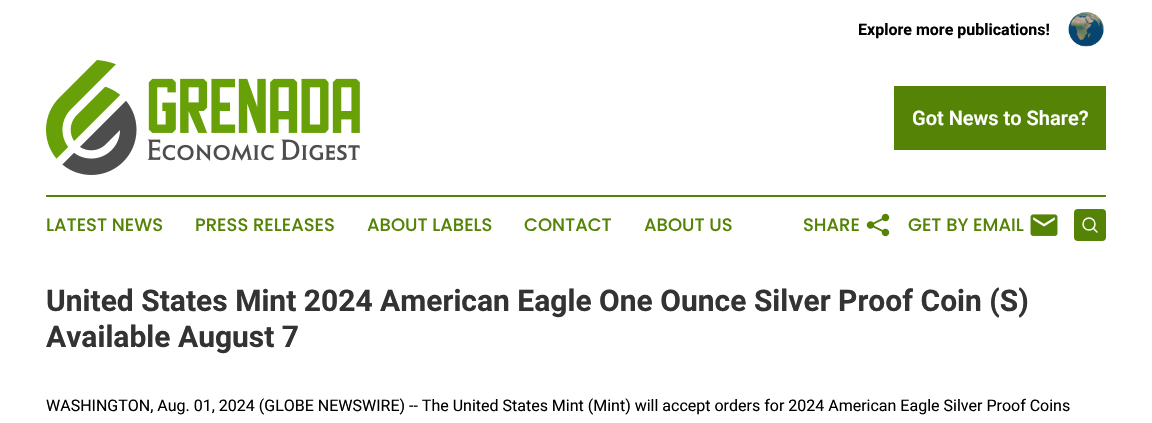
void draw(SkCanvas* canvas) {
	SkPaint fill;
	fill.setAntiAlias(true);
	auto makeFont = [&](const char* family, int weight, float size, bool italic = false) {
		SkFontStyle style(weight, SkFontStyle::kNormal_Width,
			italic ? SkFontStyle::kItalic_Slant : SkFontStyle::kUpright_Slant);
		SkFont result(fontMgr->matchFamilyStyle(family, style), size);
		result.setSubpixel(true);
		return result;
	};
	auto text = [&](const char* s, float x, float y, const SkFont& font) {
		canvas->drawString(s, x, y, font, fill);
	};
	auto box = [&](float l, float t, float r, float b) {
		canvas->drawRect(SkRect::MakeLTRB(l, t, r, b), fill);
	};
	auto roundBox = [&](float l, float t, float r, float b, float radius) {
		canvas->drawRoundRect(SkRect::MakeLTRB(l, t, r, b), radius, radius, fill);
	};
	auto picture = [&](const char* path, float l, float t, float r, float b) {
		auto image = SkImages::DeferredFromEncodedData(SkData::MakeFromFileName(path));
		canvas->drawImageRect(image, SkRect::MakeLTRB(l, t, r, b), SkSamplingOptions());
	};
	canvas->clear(0xFFFFFFFF);
	picture("image0.png", 1068, 12, 1104, 47);
	picture("image1.png", 46, 60, 360, 175);
	fill.setColor(0xFF548305);
	box(894, 86, 1106, 150);
	box(46, 195, 1106, 197);
	picture("image2.png", 866, 213, 890, 237);
	picture("image3.png", 1030, 214, 1058, 236);
	roundBox(1074, 209, 1106, 241, 4);
	fill.setStyle(SkPaint::kStroke_Style);
	fill.setStrokeWidth(1.5f);
	fill.setColor(0xFFFFFFFF);
	canvas->drawCircle(1089, 224, 6, fill);
	fill.setStrokeCap(SkPaint::kRound_Cap);
	fill.setStrokeJoin(SkPaint::kRound_Join);
	canvas->drawPath(SkPathBuilder().moveTo(1097, 232).lineTo(1093.5f, 228.5f).detach(), fill);
	auto font1 = makeFont("Roboto", 700, 16);
	fill.setStyle(SkPaint::kFill_Style);
	fill.setColor(0xFF000000);
	text("Explore more publications!", 858, 35, font1);
	auto font2 = makeFont("Roboto", 600, 20);
	fill.setColor(0xFFFFFFFF);
	text("Got News to Share?", 912, 125, font2);
	auto font3 = makeFont("Poppins", 500, 18);
	fill.setColor(0xFF548305);
	text("LATEST NEWS", 46, 231, font3);
	text("PRESS RELEASES", 195, 231, font3);
	text("ABOUT LABELS", 367, 231, font3);
	text("CONTACT", 524, 231, font3);
	text("ABOUT US", 644, 231, font3);
	text("SHARE", 803, 231, font3);
	text("GET BY EMAIL", 908, 231, font3);
	auto font4 = makeFont("Roboto", 700, 30);
	fill.setColor(0xFF333333);
	text("United States Mint 2024 American Eagle One Ounce Silver Proof Coin (S)", 46, 311, font4);
	text("Available August 7", 46, 347, font4);
	auto font5 = makeFont("Roboto", 400, 16);
	fill.setColor(0xFF000000);
	text("WASHINGTON, Aug. 01, 2024 (GLOBE NEWSWIRE) -- The United States Mint (Mint) will accept orders for 2024 American Eagle Silver Proof Coins", 46, 411, font5);
}
